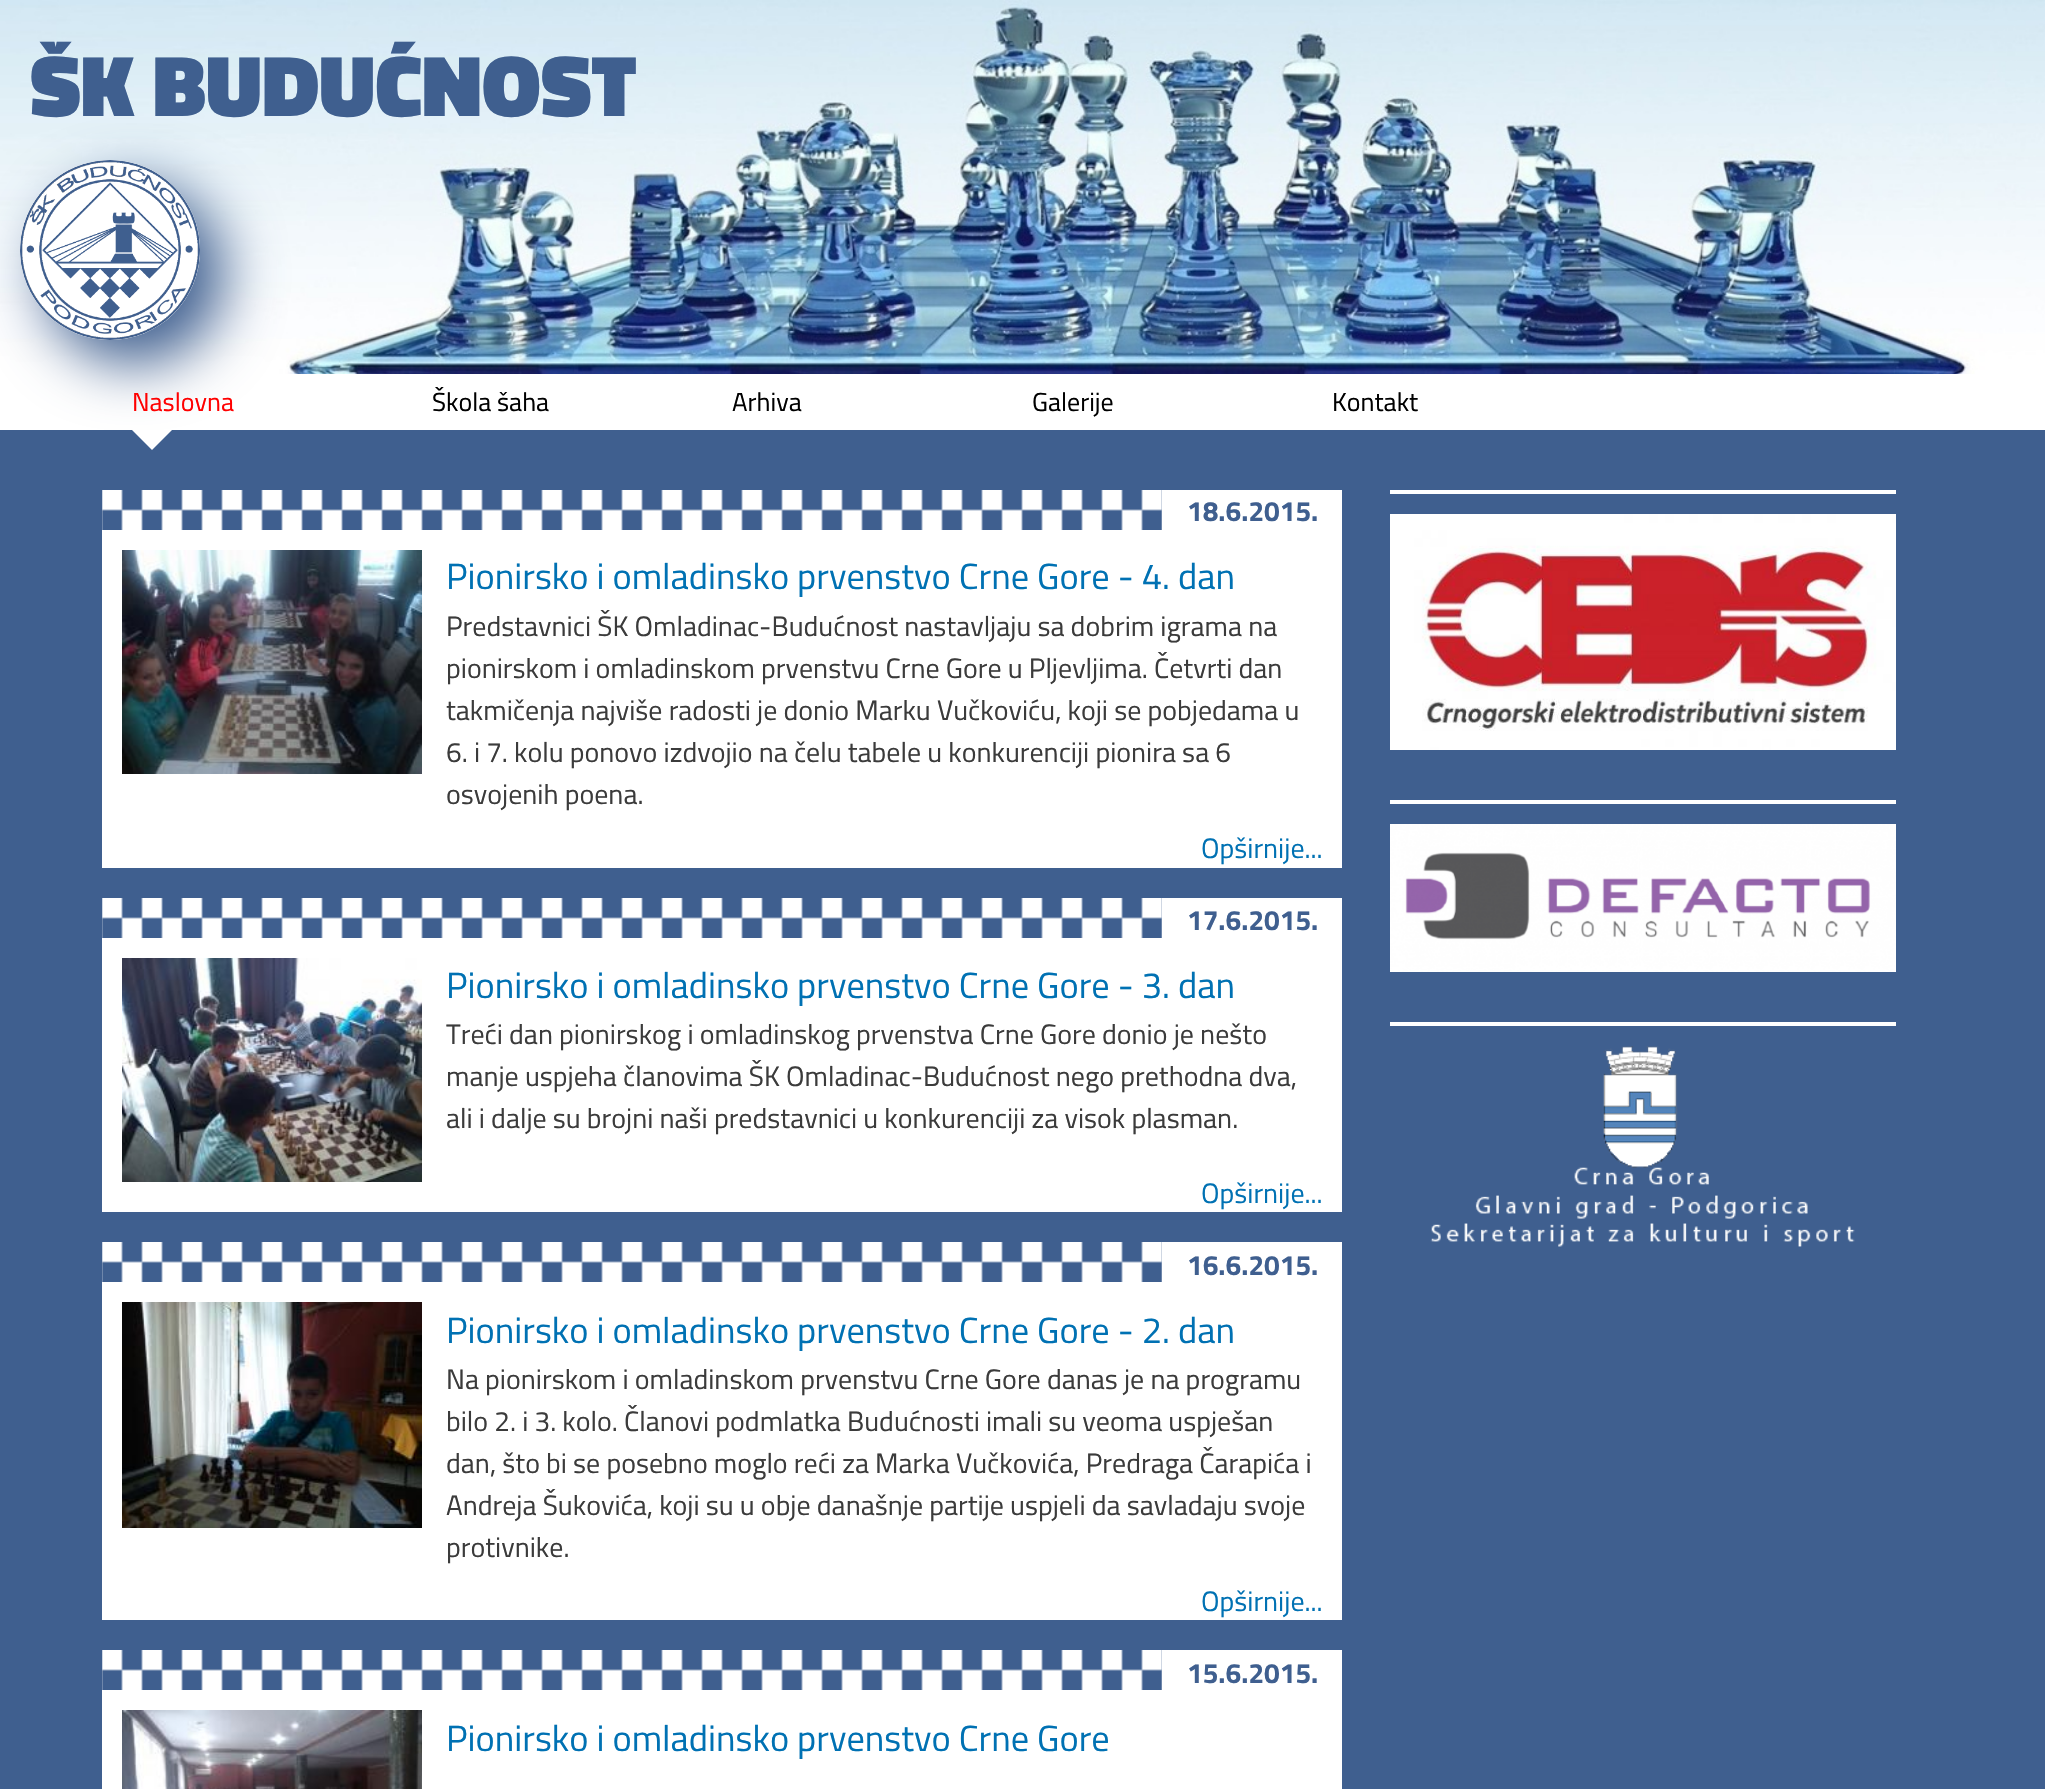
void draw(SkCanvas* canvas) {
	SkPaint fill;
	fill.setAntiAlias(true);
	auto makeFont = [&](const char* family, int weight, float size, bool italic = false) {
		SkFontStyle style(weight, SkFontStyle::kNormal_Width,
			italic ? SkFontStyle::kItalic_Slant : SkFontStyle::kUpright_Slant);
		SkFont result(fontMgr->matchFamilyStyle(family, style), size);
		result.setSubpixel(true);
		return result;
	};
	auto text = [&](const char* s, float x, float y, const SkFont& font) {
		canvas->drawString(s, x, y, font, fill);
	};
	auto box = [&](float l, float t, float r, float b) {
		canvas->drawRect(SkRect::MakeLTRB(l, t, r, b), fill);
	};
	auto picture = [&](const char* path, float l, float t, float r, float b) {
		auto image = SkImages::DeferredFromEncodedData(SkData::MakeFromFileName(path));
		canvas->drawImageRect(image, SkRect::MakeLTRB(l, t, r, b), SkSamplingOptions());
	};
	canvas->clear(0xFFFFFFFF);
	picture("image0.png", 0, 0, 2045, 374);
	fill.setColor(0xFF3F5F8F);
	box(0, 430, 2045, 1789);
	fill.setMaskFilter(SkMaskFilter::MakeBlur(kNormal_SkBlurStyle, 29));
	canvas->drawRoundRect(SkRect::MakeLTRB(44, 184, 224, 364), 90, 90, fill);
	fill.setMaskFilter(nullptr);
	fill.setColor(0xFFFFFFFF);
	canvas->drawCircle(110, 250, 90, fill);
	picture("image1.png", 20, 160, 200, 340);
	canvas->drawPath(SkPathBuilder().moveTo(132, 430).lineTo(172, 430).lineTo(152, 450).close().detach(), fill);
	box(102, 530, 1342, 868);
	picture("image2.png", 102, 490, 1162, 530);
	box(1162, 490, 1342, 530);
	picture("image3.png", 122, 550, 422, 774);
	box(102, 938, 1342, 1212);
	picture("image2.png", 102, 898, 1162, 938);
	box(1162, 898, 1342, 938);
	picture("image4.png", 122, 958, 422, 1182);
	box(102, 1282, 1342, 1620);
	picture("image2.png", 102, 1242, 1162, 1282);
	box(1162, 1242, 1342, 1282);
	picture("image5.png", 122, 1302, 422, 1528);
	box(102, 1690, 1342, 1789);
	picture("image2.png", 102, 1650, 1162, 1690);
	box(1162, 1650, 1342, 1690);
	picture("image6.png", 122, 1710, 422, 1789);
	box(1390, 490, 1896, 494);
	picture("image7.png", 1390, 514, 1896, 750);
	box(1390, 800, 1896, 804);
	picture("image8.png", 1390, 824, 1896, 972);
	box(1390, 1022, 1896, 1026);
	picture("image9.png", 1430, 1046, 1855, 1247);
	auto font1 = makeFont("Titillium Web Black", 900, 87.5f);
	fill.setColor(0xFF3F5F8F);
	text("ŠK BUDUĆNOST", 30, 116, font1);
	auto font2 = makeFont("Titillium Web", 400, 26);
	fill.setColor(0xFFFF0000);
	text("Naslovna", 132, 411, font2);
	fill.setColor(0xFF000000);
	text("Škola šaha", 432, 411, font2);
	text("Arhiva", 732, 411, font2);
	text("Galerije", 1032, 411, font2);
	text("Kontakt", 1332, 411, font2);
	auto font3 = makeFont("Titillium Web", 700, 28);
	fill.setColor(0xFF3F5F8F);
	text("18.6.2015.", 1187, 521, font3);
	auto font4 = makeFont("Titillium Web", 400, 36.4f);
	fill.setColor(0xFF0071B3);
	text("Pionirsko i omladinsko prvenstvo Crne Gore - 4. dan", 446, 589, font4);
	auto font5 = makeFont("Titillium Web", 400, 28);
	fill.setColor(0xFF3B3B3B);
	text("Predstavnici ŠK Omladinac-Budućnost nastavljaju sa dobrim igrama na", 446, 636, font5);
	text("pionirskom i omladinskom prvenstvu Crne Gore u Pljevljima. Četvrti dan", 446, 678, font5);
	text("takmičenja najviše radosti je donio Marku Vučkoviću, koji se pobjedama u", 446, 720, font5);
	text("6. i 7. kolu ponovo izdvojio na čelu tabele u konkurenciji pionira sa 6", 446, 762, font5);
	text("osvojenih poena.", 446, 804, font5);
	fill.setColor(0xFF0071B3);
	text("Opširnije...", 1201, 858, font5);
	fill.setColor(0xFF3F5F8F);
	text("17.6.2015.", 1187, 930, font3);
	fill.setColor(0xFF0071B3);
	text("Pionirsko i omladinsko prvenstvo Crne Gore - 3. dan", 446, 998, font4);
	fill.setColor(0xFF3B3B3B);
	text("Treći dan pionirskog i omladinskog prvenstva Crne Gore donio je nešto", 446, 1044, font5);
	text("manje uspjeha članovima ŠK Omladinac-Budućnost nego prethodna dva,", 446, 1086, font5);
	text("ali i dalje su brojni naši predstavnici u konkurenciji za visok plasman.", 446, 1128, font5);
	fill.setColor(0xFF0071B3);
	text("Opširnije...", 1201, 1203, font5);
	fill.setColor(0xFF3F5F8F);
	text("16.6.2015.", 1187, 1275, font3);
	fill.setColor(0xFF0071B3);
	text("Pionirsko i omladinsko prvenstvo Crne Gore - 2. dan", 446, 1343, font4);
	fill.setColor(0xFF3B3B3B);
	text("Na pionirskom i omladinskom prvenstvu Crne Gore danas je na programu", 446, 1389, font5);
	text("bilo 2. i 3. kolo. Članovi podmlatka Budućnosti imali su veoma uspješan", 446, 1431, font5);
	text("dan, što bi se posebno moglo reći za Marka Vučkovića, Predraga Čarapića i", 446, 1473, font5);
	text("Andreja Šukovića, koji su u obje današnje partije uspjeli da savladaju svoje", 446, 1515, font5);
	text("protivnike.", 446, 1557, font5);
	fill.setColor(0xFF0071B3);
	text("Opširnije...", 1201, 1611, font5);
	fill.setColor(0xFF3F5F8F);
	text("15.6.2015.", 1187, 1683, font3);
	fill.setColor(0xFF0071B3);
	text("Pionirsko i omladinsko prvenstvo Crne Gore", 446, 1751, font4);
}
